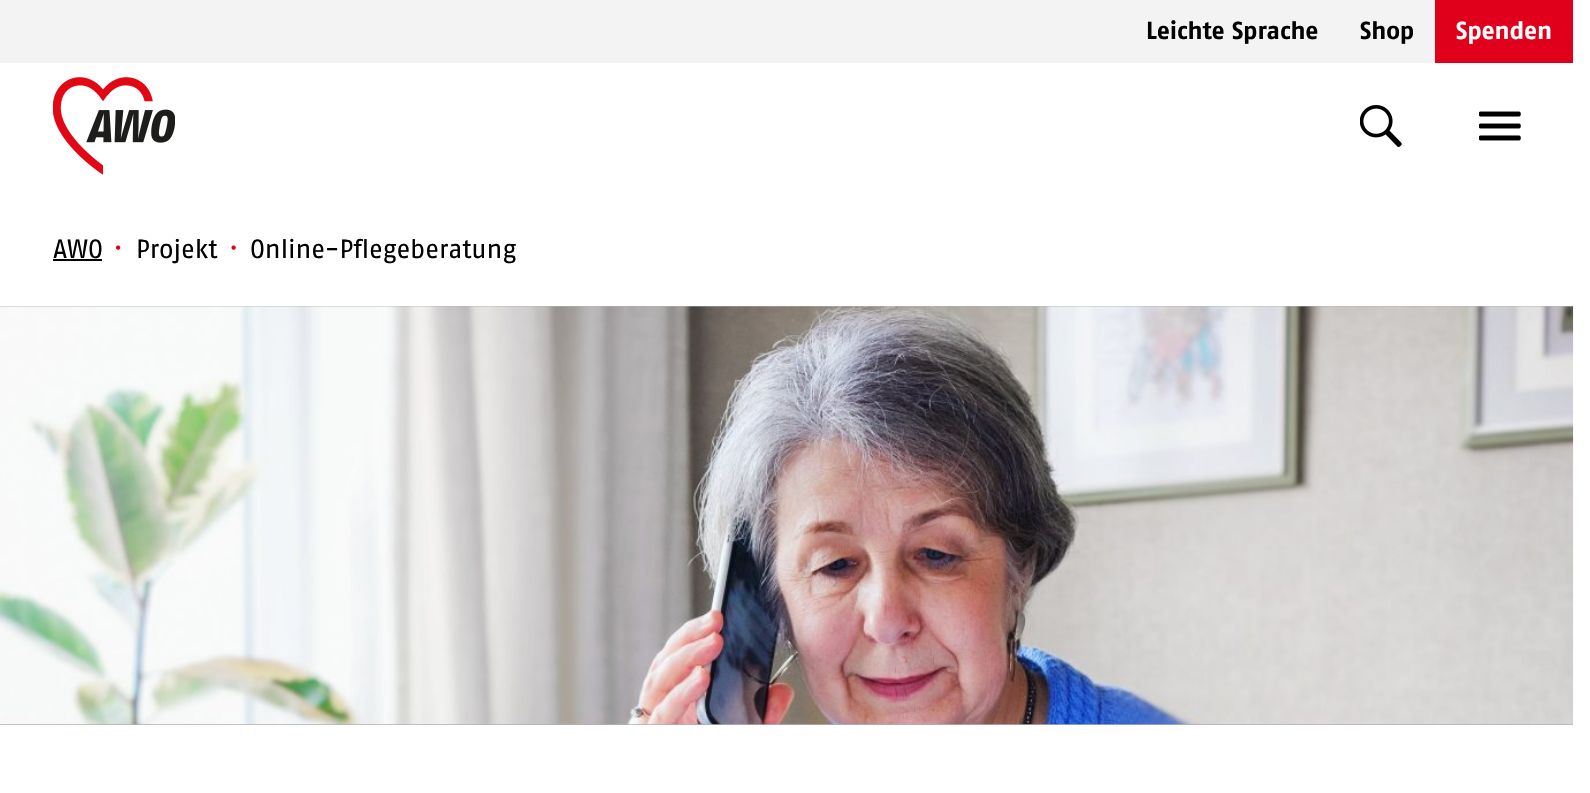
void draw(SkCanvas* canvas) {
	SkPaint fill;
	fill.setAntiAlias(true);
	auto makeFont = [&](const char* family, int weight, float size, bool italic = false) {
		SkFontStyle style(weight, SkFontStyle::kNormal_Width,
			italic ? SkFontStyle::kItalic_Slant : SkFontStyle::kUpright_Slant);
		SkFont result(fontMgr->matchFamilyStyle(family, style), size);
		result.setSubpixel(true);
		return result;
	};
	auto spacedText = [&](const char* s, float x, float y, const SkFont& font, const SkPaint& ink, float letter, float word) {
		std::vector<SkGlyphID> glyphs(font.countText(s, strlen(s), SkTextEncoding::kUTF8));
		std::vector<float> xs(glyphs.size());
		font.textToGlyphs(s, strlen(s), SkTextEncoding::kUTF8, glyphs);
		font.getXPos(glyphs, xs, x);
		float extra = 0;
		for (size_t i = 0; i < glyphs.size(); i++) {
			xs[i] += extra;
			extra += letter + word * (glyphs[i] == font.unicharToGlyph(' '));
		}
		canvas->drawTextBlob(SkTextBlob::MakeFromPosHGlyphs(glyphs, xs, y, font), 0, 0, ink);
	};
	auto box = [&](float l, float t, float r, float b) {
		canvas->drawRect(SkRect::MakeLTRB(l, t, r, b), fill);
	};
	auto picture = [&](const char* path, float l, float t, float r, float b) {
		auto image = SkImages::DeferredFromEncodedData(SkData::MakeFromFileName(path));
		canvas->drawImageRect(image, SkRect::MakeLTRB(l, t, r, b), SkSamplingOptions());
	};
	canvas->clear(0xFFFFFFFF);
	fill.setColor(0xFFF3F3F3);
	box(0, 0, 1435, 63);
	fill.setColor(0xFFE0001B);
	box(1435, 0, 1573, 63);
	picture("image0.png", 53, 77, 175, 175);
	picture("image1.png", 1360, 105, 1402, 147);
	picture("image2.png", 1479, 111, 1521, 141);
	fill.setColor(0xFF000000);
	box(53, 259, 102, 261);
	picture("image3.png", 116, 245, 121, 250);
	picture("image4.png", 231, 245, 236, 250);
	fill.setColor(0xFFB2B2B2);
	box(0, 306, 1573, 725);
	picture("image5.png", 0, 306, 1574, 725);
	auto font1 = makeFont("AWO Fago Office", 700, 24.5f);
	fill.setColor(0xFF000000);
	spacedText("Leichte Sprache", 1146, 39, font1, fill, -0.1f, 0);
	spacedText("Shop", 1360, 39, font1, fill, -0.1f, 0);
	fill.setColor(0xFFFFFFFF);
	spacedText("Spenden", 1456, 39, font1, fill, -0.1f, 0);
	auto font2 = makeFont("AWO Fago Office", 400, 26.25f);
	fill.setColor(0xFF000000);
	spacedText("AWO", 53, 258, font2, fill, -0.1f, 0);
	spacedText("Projekt", 136, 258, font2, fill, -0.1f, 0);
	spacedText("Online-Pflegeberatung", 250, 258, font2, fill, -0.1f, 0);
}
